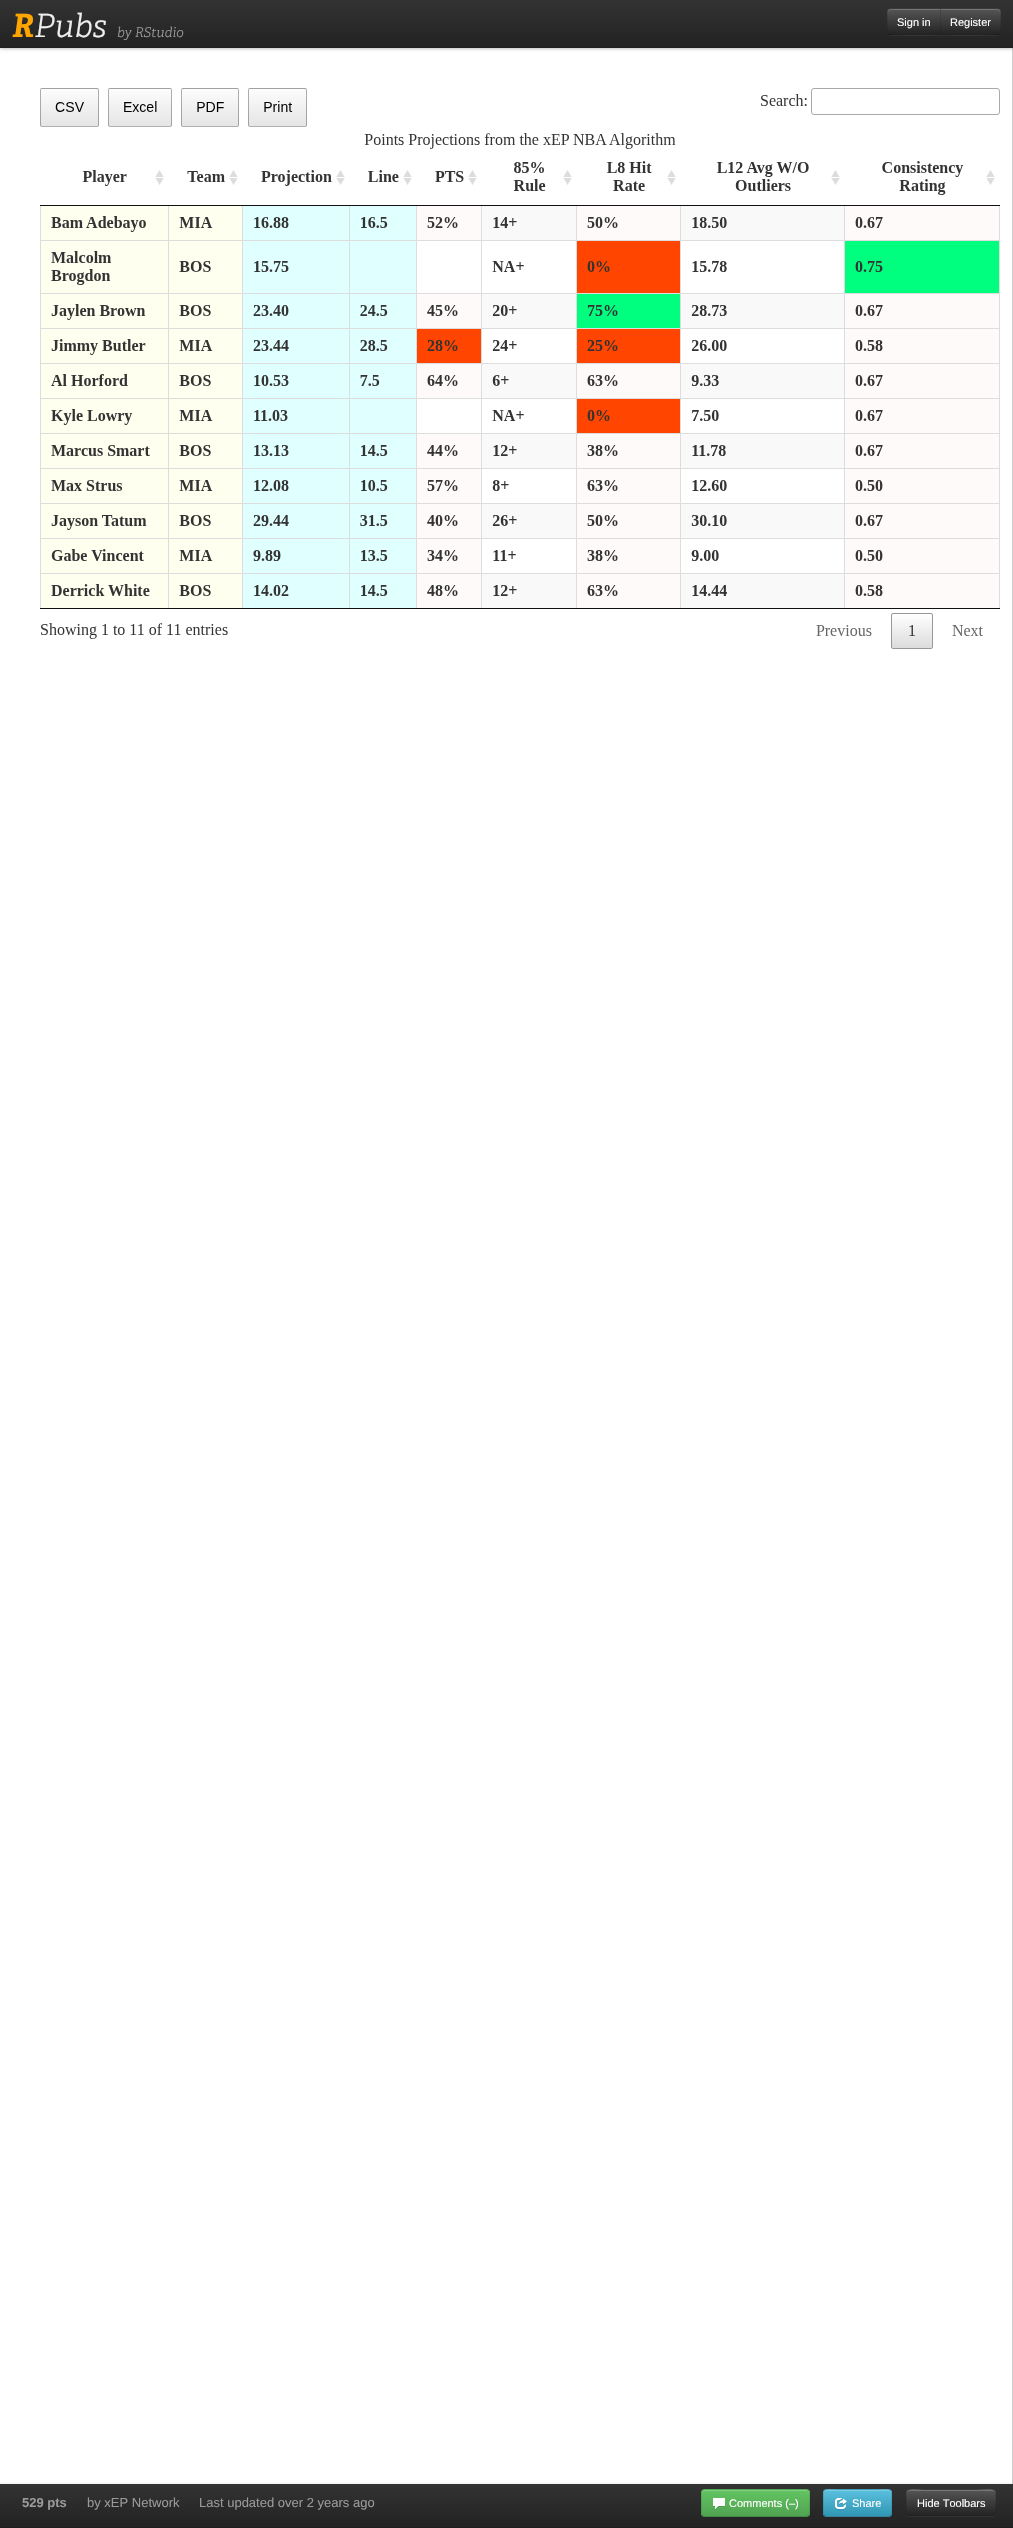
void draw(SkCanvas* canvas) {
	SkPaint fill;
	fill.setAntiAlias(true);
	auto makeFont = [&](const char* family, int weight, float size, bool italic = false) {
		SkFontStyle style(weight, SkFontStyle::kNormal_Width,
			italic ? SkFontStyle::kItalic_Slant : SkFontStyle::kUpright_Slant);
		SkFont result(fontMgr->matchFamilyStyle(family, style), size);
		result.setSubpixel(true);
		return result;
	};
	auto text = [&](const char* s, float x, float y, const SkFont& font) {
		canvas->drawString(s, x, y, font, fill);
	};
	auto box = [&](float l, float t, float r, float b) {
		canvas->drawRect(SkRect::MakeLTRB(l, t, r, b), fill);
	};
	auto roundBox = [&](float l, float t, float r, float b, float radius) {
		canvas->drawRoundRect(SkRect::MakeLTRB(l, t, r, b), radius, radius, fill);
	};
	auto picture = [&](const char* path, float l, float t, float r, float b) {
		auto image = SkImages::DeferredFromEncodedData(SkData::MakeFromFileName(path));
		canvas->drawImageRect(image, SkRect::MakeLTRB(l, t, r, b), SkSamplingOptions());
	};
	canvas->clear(0xFFFFFFFF);
	picture("image0.png", 0, 48, 1012, 2484);
	fill.setColor(0xFFCCCCCC);
	box(1012, 48, 1013, 2488);
	fill.setColor(0x40000000);
	fill.setMaskFilter(SkMaskFilter::MakeBlur(kNormal_SkBlurStyle, 1.5f));
	canvas->drawRect(SkRect::MakeLTRB(0, 1, 1013, 49), fill);
	fill.setMaskFilter(nullptr);
	{
		const SkColor colors[] = {0xFF333333, 0xFF222222};
		const float stops[] = {0, 1};
		const SkPoint ends[] = {{507, 0}, {507, 48}};
		fill.setShader(SkGradientShader::MakeLinear(ends, colors, stops, 2, SkTileMode::kClamp));
		fill.setAlpha(255);
	}
	box(0, 0, 1013, 47);
	fill.setShader(nullptr);
	fill.setColor(0xFF1F1F1F);
	box(0, 47, 1013, 48);
	fill.setColor(0xFF414141);
	canvas->drawPath(SkPathBuilder().moveTo(891, 8).lineTo(941, 8).lineTo(941, 36).lineTo(891, 36).cubicTo(889, 36, 887, 34, 887, 32).lineTo(887, 12).cubicTo(887, 10, 889, 8, 891, 8).close().detach(), fill);
	canvas->save();
	canvas->clipPath(SkPathBuilder().moveTo(891, 8).lineTo(941, 8).lineTo(941, 36).lineTo(891, 36).cubicTo(889, 36, 887, 34, 887, 32).lineTo(887, 12).cubicTo(887, 10, 889, 8, 891, 8).close().detach(), true);
	{
		const SkColor colors[] = {0xFF555555, 0xFF222222};
		const float stops[] = {0, 1};
		const SkPoint ends[] = {{914, 9}, {914, 35}};
		fill.setShader(SkGradientShader::MakeLinear(ends, colors, stops, 2, SkTileMode::kClamp));
		fill.setAlpha(255);
	}
	box(887, 9, 940, 35);
	canvas->restore();
	fill.setShader(nullptr);
	fill.setColor(0xFF767676);
	canvas->drawPath(SkPathBuilder().moveTo(891, 10).lineTo(940, 10).lineTo(940, 9).lineTo(891, 9).cubicTo(889, 9, 888, 10, 888, 12).lineTo(888, 13).cubicTo(888, 11, 889, 10, 891, 10).close().detach(), fill);
	fill.setColor(0x1A000000);
	canvas->drawPath(SkPathBuilder().moveTo(891, 8).lineTo(888, 9).lineTo(889, 10).cubicTo(891, 8, 934, 9, 940, 9).lineTo(941, 8).close().detach(), fill);
	fill.setColor(0x40000000);
	canvas->drawPath(SkPathBuilder().moveTo(941, 36).lineTo(940, 35).cubicTo(934, 35, 891, 36, 889, 34).lineTo(888, 35).lineTo(891, 36).close().detach(), fill);
	fill.setColor(0x1A000000);
	canvas->drawPath(SkPathBuilder().moveTo(887, 12).lineTo(887, 32).cubicTo(887, 33, 887.5f, 34, 888, 35).lineTo(889, 34).cubicTo(888, 34, 888, 33, 888, 32).lineTo(888, 12).cubicTo(888, 11, 888, 10, 889, 10).lineTo(888, 9).cubicTo(887.5f, 10, 887, 11, 887, 12).close().detach(), fill);
	fill.setColor(0xFF414141);
	canvas->drawPath(SkPathBuilder().moveTo(940, 8).lineTo(997, 8).cubicTo(999, 8, 1001, 10, 1001, 12).lineTo(1001, 32).cubicTo(1001, 34, 999, 36, 997, 36).lineTo(940, 36).close().detach(), fill);
	canvas->save();
	canvas->clipPath(SkPathBuilder().moveTo(940, 8).lineTo(997, 8).cubicTo(999, 8, 1001, 10, 1001, 12).lineTo(1001, 32).cubicTo(1001, 34, 999, 36, 997, 36).lineTo(940, 36).close().detach(), true);
	{
		const SkColor colors[] = {0xFF555555, 0xFF222222};
		const float stops[] = {0, 1};
		const SkPoint ends[] = {{971, 9}, {971, 35}};
		fill.setShader(SkGradientShader::MakeLinear(ends, colors, stops, 2, SkTileMode::kClamp));
		fill.setAlpha(255);
	}
	box(940, 9, 1001, 35);
	canvas->restore();
	fill.setShader(nullptr);
	fill.setColor(0xFF767676);
	canvas->drawPath(SkPathBuilder().moveTo(941, 10).lineTo(997, 10).cubicTo(999, 10, 1000, 11, 1000, 13).lineTo(1000, 12).cubicTo(1000, 10, 999, 9, 997, 9).lineTo(941, 9).close().detach(), fill);
	fill.setColor(0x1A000000);
	canvas->drawPath(SkPathBuilder().moveTo(940, 8).lineTo(941, 9).cubicTo(948, 9, 997, 8, 999, 10).lineTo(1000, 9).lineTo(997, 8).close().detach(), fill);
	canvas->drawPath(SkPathBuilder().moveTo(1001, 32).lineTo(1001, 12).cubicTo(1001, 11, 1000.5f, 10, 1000, 9).lineTo(999, 10).cubicTo(1000, 10, 1000, 11, 1000, 12).lineTo(1000, 32).cubicTo(1000, 33, 1000, 34, 999, 34).lineTo(1000, 35).cubicTo(1000.5f, 34, 1001, 33, 1001, 32).close().detach(), fill);
	fill.setColor(0x40000000);
	canvas->drawPath(SkPathBuilder().moveTo(997, 36).lineTo(1000, 35).lineTo(999, 34).cubicTo(997, 36, 948, 35, 941, 35).lineTo(940, 36).close().detach(), fill);
	fill.setColor(0x1A000000);
	canvas->drawPath(SkPathBuilder().moveTo(940, 8).lineTo(940, 36).lineTo(941, 35).lineTo(941, 9).close().detach(), fill);
	fill.setColor(0x40000000);
	fill.setMaskFilter(SkMaskFilter::MakeBlur(kNormal_SkBlurStyle, 1.5f));
	canvas->drawRect(SkRect::MakeLTRB(0, 2485, 1013, 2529), fill);
	fill.setMaskFilter(nullptr);
	{
		const SkColor colors[] = {0xFF333333, 0xFF222222};
		const float stops[] = {0, 1};
		const SkPoint ends[] = {{507, 2484}, {507, 2528}};
		fill.setShader(SkGradientShader::MakeLinear(ends, colors, stops, 2, SkTileMode::kClamp));
		fill.setAlpha(255);
	}
	box(0, 2484, 1013, 2527);
	fill.setShader(nullptr);
	fill.setColor(0xFF1F1F1F);
	box(0, 2527, 1013, 2528);
	fill.setColor(0xFF5BB75B);
	roundBox(701, 2489, 810, 2517, 4);
	canvas->save();
	canvas->clipPath(SkPathBuilder().moveTo(705, 2489).lineTo(806, 2489).cubicTo(808, 2489, 810, 2491, 810, 2493).lineTo(810, 2513).cubicTo(810, 2515, 808, 2517, 806, 2517).lineTo(705, 2517).cubicTo(703, 2517, 701, 2515, 701, 2513).lineTo(701, 2493).cubicTo(701, 2491, 703, 2489, 705, 2489).close().detach(), true);
	{
		const SkColor colors[] = {0xFF62C462, 0xFF51A351};
		const float stops[] = {0, 1};
		const SkPoint ends[] = {{756, 2490}, {756, 2516}};
		fill.setShader(SkGradientShader::MakeLinear(ends, colors, stops, 2, SkTileMode::kClamp));
		fill.setAlpha(255);
	}
	box(701, 2490, 810, 2516);
	canvas->restore();
	fill.setShader(nullptr);
	fill.setColor(0xFF81CF81);
	canvas->drawPath(SkPathBuilder(SkPathFillType::kEvenOdd).moveTo(705, 2491).lineTo(807, 2491).cubicTo(808, 2491, 809, 2493, 809, 2494).lineTo(809, 2493).cubicTo(809, 2491, 808, 2490, 806, 2490).lineTo(705, 2490).cubicTo(703, 2490, 702, 2491, 702, 2493).cubicTo(702, 2492, 703, 2491, 705, 2491).close().moveTo(809, 2511).lineTo(809, 2514).close().detach(), fill);
	fill.setStyle(SkPaint::kStroke_Style);
	fill.setStrokeWidth(1);
	fill.setColor(0x40000000);
	canvas->drawPath(SkPathBuilder().moveTo(808.5f, 2515.5f).lineTo(806, 2516.5f).lineTo(704.5f, 2516.5f).lineTo(702.5f, 2515.5f).detach(), fill);
	fill.setColor(0x1A000000);
	canvas->drawPath(SkPathBuilder().moveTo(702.5f, 2515.5f).cubicTo(700.5f, 2513.5f, 701.5f, 2509, 701.5f, 2506.5f).cubicTo(701.5f, 2485.5f, 698.5f, 2489.5f, 722, 2489.5f).lineTo(789, 2489.5f).cubicTo(812.5f, 2489.5f, 809.5f, 2485.5f, 809.5f, 2506.5f).cubicTo(809.5f, 2509, 810.5f, 2513.5f, 808.5f, 2515.5f).detach(), fill);
	picture("image1.png", 713, 2498, 725, 2510);
	fill.setStyle(SkPaint::kFill_Style);
	fill.setColor(0xFF49AFCD);
	roundBox(823, 2489, 892, 2517, 4);
	canvas->save();
	canvas->clipPath(SkPathBuilder().moveTo(827, 2489).lineTo(888, 2489).cubicTo(890, 2489, 892, 2491, 892, 2493).lineTo(892, 2513).cubicTo(892, 2515, 890, 2517, 888, 2517).lineTo(827, 2517).cubicTo(825, 2517, 823, 2515, 823, 2513).lineTo(823, 2493).cubicTo(823, 2491, 825, 2489, 827, 2489).close().detach(), true);
	{
		const SkColor colors[] = {0xFF5BC0DE, 0xFF2F96B4};
		const float stops[] = {0, 1};
		const SkPoint ends[] = {{858, 2490}, {858, 2516}};
		fill.setShader(SkGradientShader::MakeLinear(ends, colors, stops, 2, SkTileMode::kClamp));
		fill.setAlpha(255);
	}
	box(823, 2490, 892, 2516);
	canvas->restore();
	fill.setShader(nullptr);
	fill.setColor(0x33FFFFFF);
	canvas->drawPath(SkPathBuilder().moveTo(827, 2491).lineTo(888, 2491).cubicTo(890, 2491, 891, 2492, 891, 2494).cubicTo(891, 2487, 882, 2490, 878, 2490).lineTo(837, 2490).cubicTo(833, 2490, 824, 2487, 824, 2494).cubicTo(824, 2492, 825, 2491, 827, 2491).close().detach(), fill);
	fill.setStyle(SkPaint::kStroke_Style);
	fill.setColor(0x40000000);
	canvas->drawPath(SkPathBuilder().moveTo(890.5f, 2515.5f).lineTo(888.5f, 2516.5f).lineTo(826.5f, 2516.5f).lineTo(824.5f, 2515.5f).detach(), fill);
	fill.setColor(0x1A000000);
	canvas->drawPath(SkPathBuilder().moveTo(824.5f, 2515.5f).cubicTo(822.5f, 2513, 823.5f, 2505.5f, 823.5f, 2503).cubicTo(823.5f, 2488, 821.5f, 2489.5f, 837, 2489.5f).lineTo(878, 2489.5f).cubicTo(893.5f, 2489.5f, 891.5f, 2488, 891.5f, 2503).cubicTo(891.5f, 2505.5f, 892.5f, 2513, 890.5f, 2515.5f).detach(), fill);
	picture("image2.png", 835, 2498, 847, 2510);
	fill.setStyle(SkPaint::kFill_Style);
	fill.setColor(0xFF414141);
	roundBox(906, 2489, 996, 2517, 4);
	canvas->save();
	canvas->clipPath(SkPathBuilder().moveTo(910, 2489).lineTo(992, 2489).cubicTo(994, 2489, 996, 2491, 996, 2493).lineTo(996, 2513).cubicTo(996, 2515, 994, 2517, 992, 2517).lineTo(910, 2517).cubicTo(908, 2517, 906, 2515, 906, 2513).lineTo(906, 2493).cubicTo(906, 2491, 908, 2489, 910, 2489).close().detach(), true);
	{
		const SkColor colors[] = {0xFF555555, 0xFF222222};
		const float stops[] = {0, 1};
		const SkPoint ends[] = {{951, 2490}, {951, 2516}};
		fill.setShader(SkGradientShader::MakeLinear(ends, colors, stops, 2, SkTileMode::kClamp));
		fill.setAlpha(255);
	}
	box(906, 2490, 996, 2516);
	canvas->restore();
	fill.setShader(nullptr);
	fill.setColor(0x33FFFFFF);
	canvas->drawPath(SkPathBuilder().moveTo(910, 2491).lineTo(992, 2491).cubicTo(994, 2491, 995, 2492, 995, 2494).cubicTo(995, 2486, 982, 2490, 978, 2490).lineTo(924, 2490).cubicTo(920, 2490, 907, 2486, 907, 2494).cubicTo(907, 2492, 908, 2491, 910, 2491).close().detach(), fill);
	fill.setStyle(SkPaint::kStroke_Style);
	fill.setColor(0x40000000);
	canvas->drawPath(SkPathBuilder().moveTo(994.5f, 2515.5f).lineTo(992.5f, 2516.5f).lineTo(909.5f, 2516.5f).lineTo(907.5f, 2515.5f).detach(), fill);
	fill.setColor(0x1A000000);
	canvas->drawPath(SkPathBuilder().moveTo(907.5f, 2515.5f).cubicTo(905.5f, 2513.5f, 906.5f, 2509, 906.5f, 2506.5f).cubicTo(906.5f, 2487, 903.5f, 2489.5f, 923.5f, 2489.5f).lineTo(978.5f, 2489.5f).cubicTo(998.5f, 2489.5f, 995.5f, 2487, 995.5f, 2506.5f).cubicTo(995.5f, 2509, 996.5f, 2513.5f, 994.5f, 2515.5f).detach(), fill);
	auto font1 = makeFont("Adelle", 700, 32, true);
	fill.setStyle(SkPaint::kFill_Style);
	fill.setColor(0xFFFFA500);
	text("R", 12, 37, font1);
	auto font2 = makeFont("Adelle", 300, 32, true);
	fill.setColor(0xFFEEEEEE);
	text("Pubs", 34, 37, font2);
	auto font3 = makeFont("Adelle", 300, 13.5f, true);
	fill.setColor(0xFF999999);
	text("by RStudio", 117, 37, font3);
	auto font4 = makeFont("Liberation Sans", 400, 11);
	fill.setColor(0xFFFFFFFF);
	text("Sign in", 897, 26, font4);
	text("Register", 950, 26, font4);
	auto font5 = makeFont("Liberation Sans", 700, 13);
	fill.setColor(0xFF999999);
	text("529 pts", 22, 2507, font5);
	auto font6 = makeFont("Liberation Sans", 400, 13);
	text("by xEP Network", 87, 2507, font6);
	text("Last updated over 2 years ago", 199, 2507, font6);
	fill.setColor(0xFFFFFFFF);
	text("Comments (–)", 729, 2507, font4);
	text("Share", 852, 2507, font4);
	text("Hide Toolbars", 917, 2507, font4);
}
